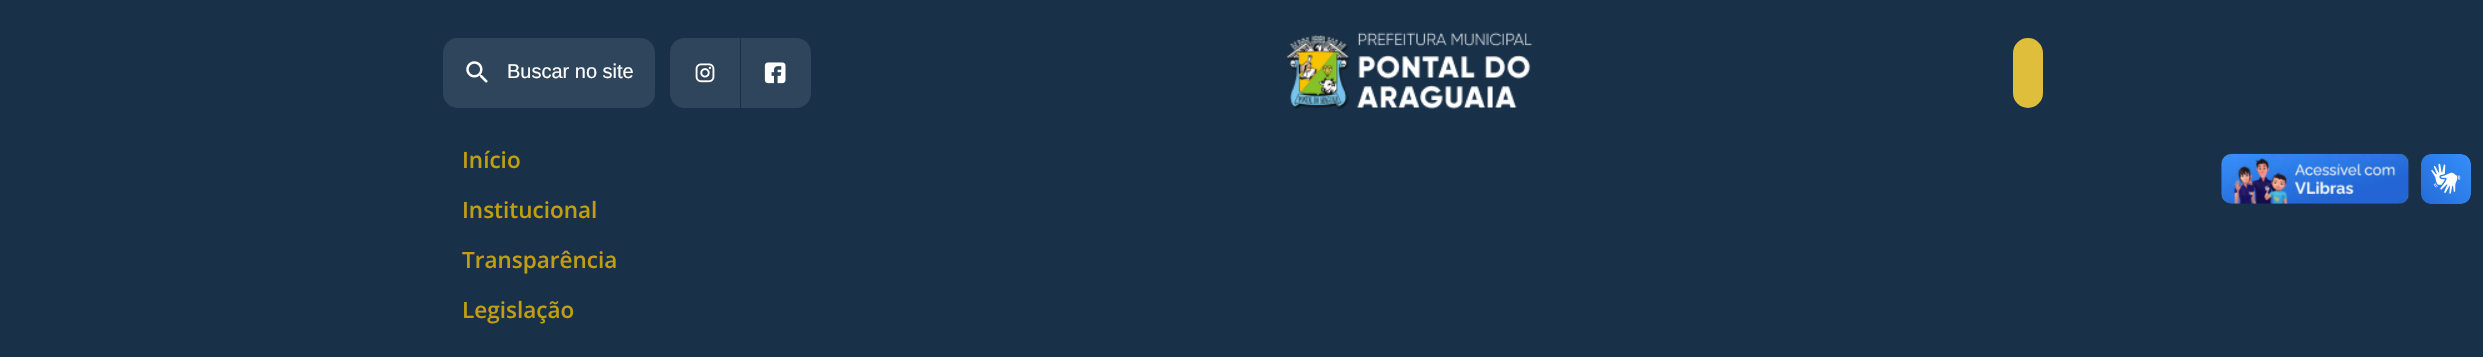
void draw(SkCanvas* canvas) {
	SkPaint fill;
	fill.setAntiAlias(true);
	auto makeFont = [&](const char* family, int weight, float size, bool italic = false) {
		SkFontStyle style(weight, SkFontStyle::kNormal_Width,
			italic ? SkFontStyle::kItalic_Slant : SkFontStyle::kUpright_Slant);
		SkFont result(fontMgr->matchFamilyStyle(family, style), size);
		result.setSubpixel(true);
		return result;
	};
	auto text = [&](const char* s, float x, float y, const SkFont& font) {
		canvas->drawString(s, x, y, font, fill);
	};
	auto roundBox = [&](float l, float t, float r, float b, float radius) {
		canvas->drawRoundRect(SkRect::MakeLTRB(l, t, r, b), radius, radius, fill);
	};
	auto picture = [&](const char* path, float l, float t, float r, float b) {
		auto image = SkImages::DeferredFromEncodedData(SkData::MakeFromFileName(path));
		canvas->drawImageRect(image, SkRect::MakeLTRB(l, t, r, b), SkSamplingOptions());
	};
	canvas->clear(0xFF183149);
	fill.setColor(0xFF2F455B);
	roundBox(443, 38, 655, 108, 15);
	picture("image0.png", 466, 61, 488, 83);
	canvas->drawPath(SkPathBuilder().moveTo(685, 38).lineTo(740, 38).lineTo(740, 108).lineTo(685, 108).cubicTo(676.5f, 108, 670, 101.5f, 670, 93).lineTo(670, 53).cubicTo(670, 44.5f, 676.5f, 38, 685, 38).close().detach(), fill);
	picture("image1.png", 695, 63, 715, 83);
	canvas->drawPath(SkPathBuilder().moveTo(741, 38).lineTo(796, 38).cubicTo(804.5f, 38, 811, 44.5f, 811, 53).lineTo(811, 93).cubicTo(811, 101.5f, 804.5f, 108, 796, 108).lineTo(741, 108).close().detach(), fill);
	picture("image2.png", 764, 62, 786, 84);
	picture("image3.png", 1286, 32, 1533, 109);
	fill.setColor(0xFFDFBE3B);
	roundBox(2013, 38, 2043, 108, 15);
	picture("image4.png", 2221, 153, 2410, 204);
	picture("image5.png", 2421, 154, 2471, 204);
	auto font1 = makeFont("Liberation Sans", 400, 20);
	fill.setColor(0xFFFFFFFF);
	text("Buscar no site", 507, 78, font1);
	auto font2 = makeFont("Open Sans", 600, 22.5f);
	fill.setColor(0xFFC19E11);
	text("Início", 462, 168, font2);
	text("Institucional", 462, 218, font2);
	text("Transparência", 462, 268, font2);
	text("Legislação", 462, 318, font2);
}
